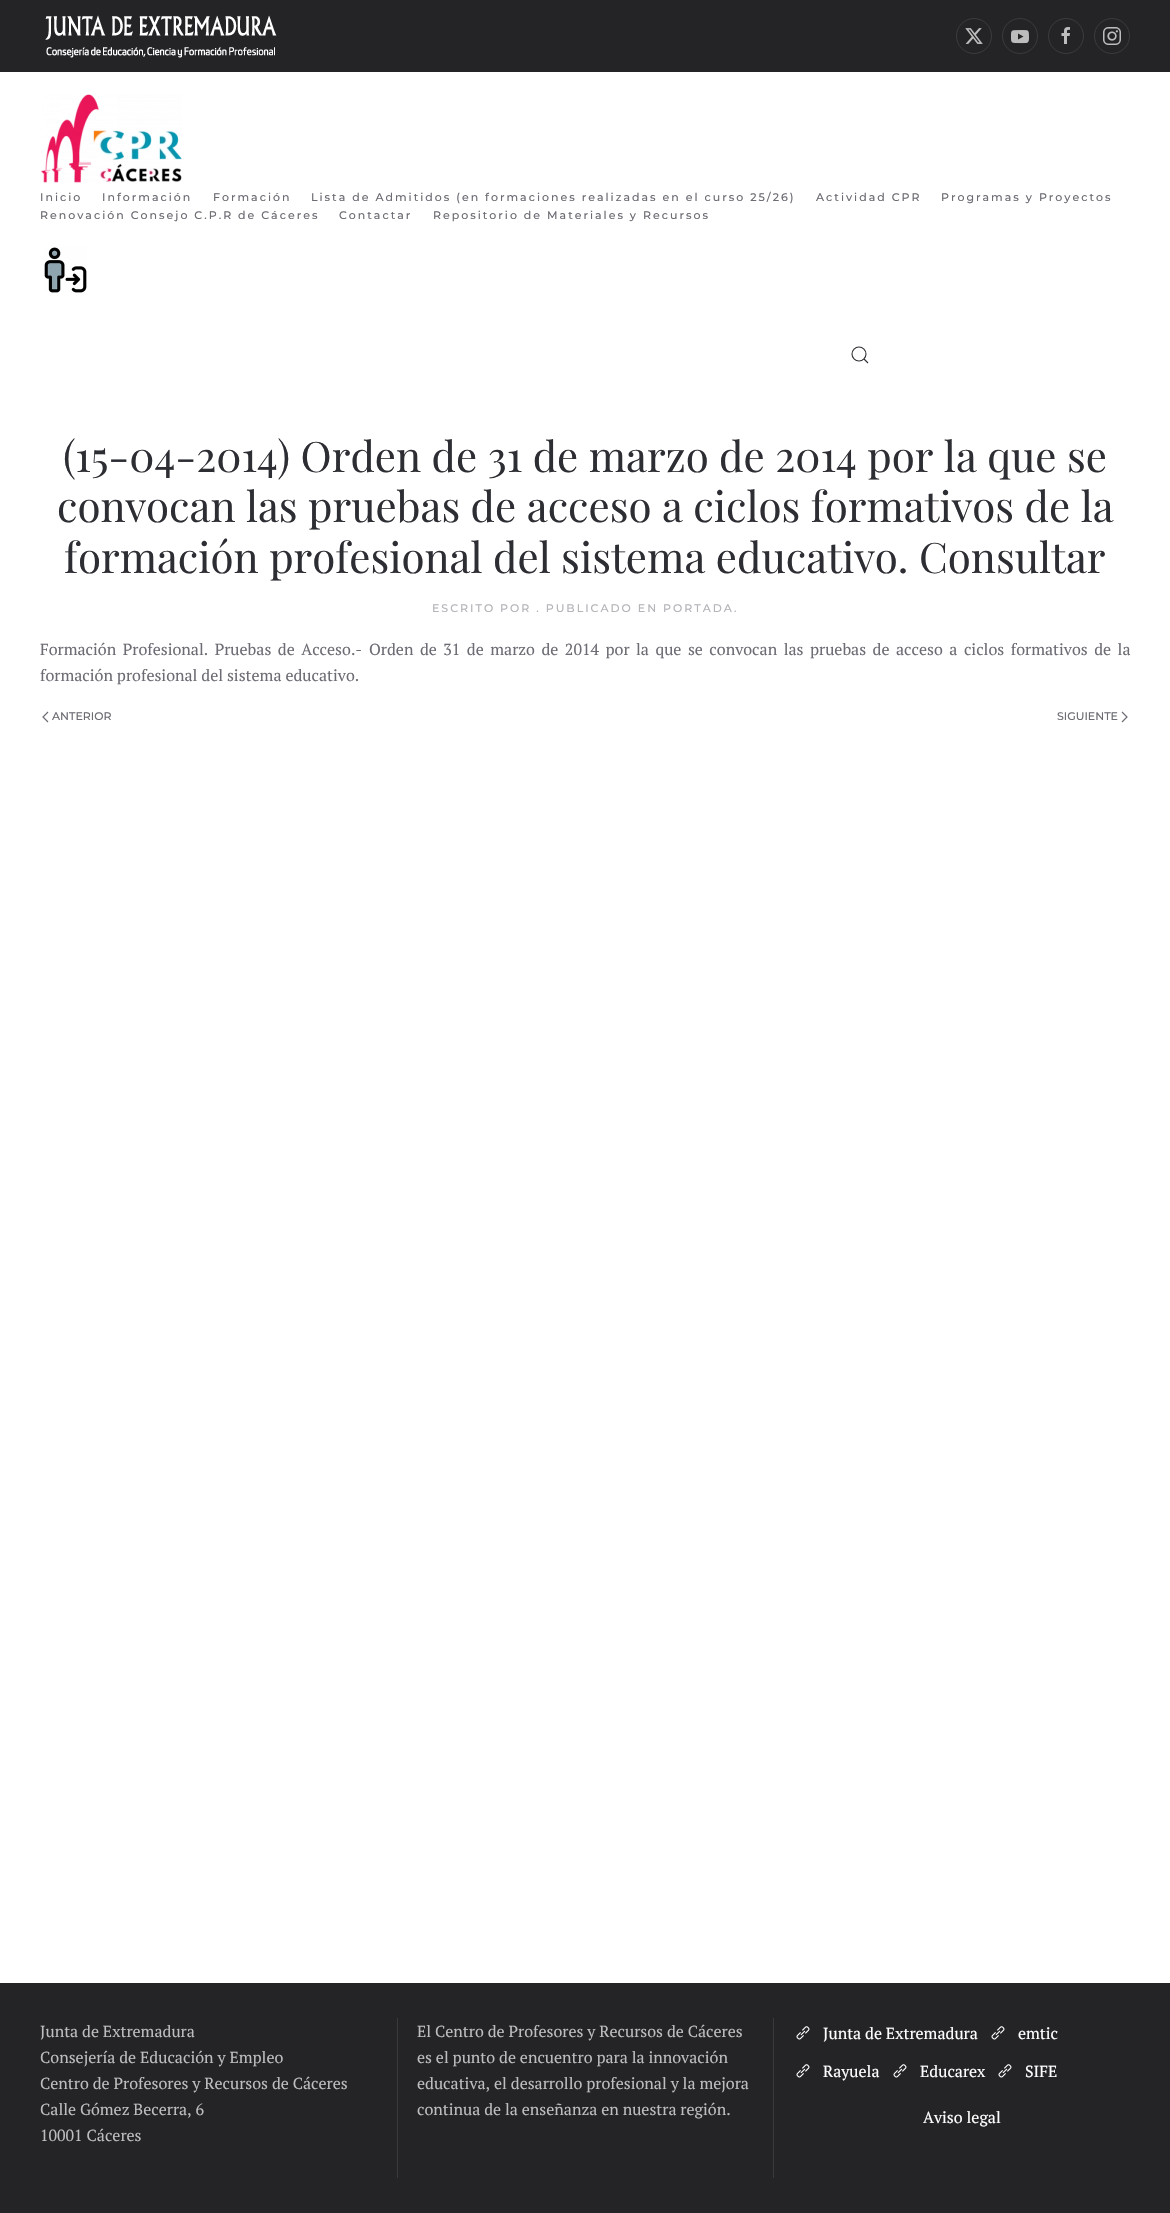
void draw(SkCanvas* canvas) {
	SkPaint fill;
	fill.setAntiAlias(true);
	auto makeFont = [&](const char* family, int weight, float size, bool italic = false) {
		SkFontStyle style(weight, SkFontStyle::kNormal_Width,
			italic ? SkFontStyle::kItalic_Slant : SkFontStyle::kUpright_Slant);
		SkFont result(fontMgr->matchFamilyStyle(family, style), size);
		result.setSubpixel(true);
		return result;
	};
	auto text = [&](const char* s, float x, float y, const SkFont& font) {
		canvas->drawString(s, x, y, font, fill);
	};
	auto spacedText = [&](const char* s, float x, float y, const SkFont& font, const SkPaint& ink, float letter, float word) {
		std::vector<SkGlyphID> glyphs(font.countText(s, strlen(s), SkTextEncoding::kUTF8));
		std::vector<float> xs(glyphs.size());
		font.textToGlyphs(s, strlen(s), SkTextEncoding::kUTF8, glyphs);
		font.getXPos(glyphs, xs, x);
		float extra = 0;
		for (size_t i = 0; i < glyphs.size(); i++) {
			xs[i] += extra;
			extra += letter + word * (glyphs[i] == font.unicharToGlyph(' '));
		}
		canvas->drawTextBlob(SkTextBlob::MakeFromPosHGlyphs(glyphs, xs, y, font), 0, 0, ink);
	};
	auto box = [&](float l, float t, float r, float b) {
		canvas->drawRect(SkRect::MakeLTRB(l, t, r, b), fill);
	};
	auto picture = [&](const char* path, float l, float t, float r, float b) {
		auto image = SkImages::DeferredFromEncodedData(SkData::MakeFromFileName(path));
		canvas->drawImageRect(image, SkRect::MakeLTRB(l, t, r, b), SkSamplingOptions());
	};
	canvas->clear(0xFFFFFFFF);
	fill.setColor(0xFF242427);
	box(0, 0, 1170, 72);
	picture("image0.png", 45, 15, 277, 58);
	fill.setStyle(SkPaint::kStroke_Style);
	fill.setStrokeWidth(1);
	fill.setColor(0xFF3A3A3D);
	canvas->drawCircle(974, 36, 17.5f, fill);
	picture("image1.png", 965, 28, 983, 44);
	canvas->drawCircle(1020, 36, 17.5f, fill);
	picture("image2.png", 1011, 30, 1029, 44);
	canvas->drawCircle(1066, 36, 17.5f, fill);
	picture("image3.png", 1061, 27, 1070, 44);
	canvas->drawCircle(1112, 36, 17.5f, fill);
	picture("image4.png", 1103, 27, 1121, 45);
	picture("image5.png", 41, 94, 182, 183);
	picture("image6.png", 44, 247, 87, 293);
	fill.setStrokeWidth(1.1f);
	fill.setColor(0xFF2D2E33);
	canvas->drawCircle(859, 354, 7, fill);
	canvas->drawPath(SkPathBuilder().moveTo(864, 359).lineTo(868, 363).close().detach(), fill);
	fill.setStrokeWidth(1.2f);
	fill.setColor(0xFF6C6D74);
	canvas->drawPath(SkPathBuilder().moveTo(48, 712).lineTo(43, 717).lineTo(48, 722).detach(), fill);
	canvas->drawPath(SkPathBuilder().moveTo(1122, 712).lineTo(1127, 717).lineTo(1122, 722).detach(), fill);
	fill.setStyle(SkPaint::kFill_Style);
	fill.setColor(0xFF242427);
	box(0, 1983, 1170, 2213);
	fill.setColor(0xFF3A3A3D);
	box(397, 2018, 398, 2178);
	box(773, 2018, 774, 2178);
	picture("image7.png", 796, 2026, 810, 2040);
	picture("image7.png", 991, 2026, 1005, 2040);
	picture("image7.png", 796, 2064, 810, 2078);
	picture("image7.png", 893, 2064, 907, 2078);
	picture("image7.png", 998, 2064, 1012, 2078);
	auto font1 = makeFont("Montserrat", 100, 11);
	fill.setColor(0xFF6C6D74);
	spacedText("Inicio", 40, 201, font1, fill, 2, 0);
	spacedText("Información", 102, 201, font1, fill, 2, 0);
	spacedText("Formación", 213, 201, font1, fill, 2, 0);
	spacedText("Lista de Admitidos (en formaciones realizadas en el curso 25/26)", 311, 201, font1, fill, 2, 0);
	spacedText("Actividad CPR", 816, 201, font1, fill, 2, 0);
	spacedText("Programas y Proyectos", 941, 201, font1, fill, 2, 0);
	spacedText("Renovación Consejo C.P.R de Cáceres", 40, 219, font1, fill, 2, 0);
	spacedText("Contactar", 339, 219, font1, fill, 2, 0);
	spacedText("Repositorio de Materiales y Recursos", 433, 219, font1, fill, 2, 0);
	auto font2 = makeFont("Playfair Display", 400, 42);
	fill.setColor(0xFF2D2E33);
	text("(15-04-2014) Orden de 31 de marzo de 2014 por la que se", 63, 472, font2);
	text("convocan las pruebas de acceso a ciclos formativos de la", 57, 522, font2);
	text("formación profesional del sistema educativo. Consultar", 64, 573, font2);
	fill.setColor(0xFFB4B5BA);
	spacedText("ESCRITO POR . PUBLICADO EN PORTADA.", 432, 612, font1, fill, 2, 0);
	auto font3 = makeFont("PT Serif", 400, 16);
	fill.setColor(0xFF6C6D74);
	spacedText("Formación Profesional. Pruebas de Acceso.-", 40, 655, font3, fill, 0, 2.6f);
	spacedText("Orden de 31 de marzo de 2014 por la que se convocan las pruebas de acceso a ciclos formativos de la", 369, 655, font3, fill, 0, 2.6f);
	text("formación profesional del sistema educativo.", 40, 681, font3);
	text("ANTERIOR", 52, 720, font1);
	text("SIGUIENTE", 1057, 720, font1);
	fill.setColor(0xFFBDBDBE);
	text("Junta de Extremadura", 40, 2037, font3);
	text("Consejería de Educación y Empleo", 40, 2063, font3);
	text("Centro de Profesores y Recursos de Cáceres", 40, 2089, font3);
	text("Calle Gómez Becerra, 6", 40, 2115, font3);
	text("10001 Cáceres", 40, 2141, font3);
	text("El Centro de Profesores y Recursos de Cáceres", 417, 2037, font3);
	text("es el punto de encuentro para la innovación", 417, 2063, font3);
	text("educativa, el desarrollo profesional y la mejora", 417, 2089, font3);
	text("continua de la enseñanza en nuestra región.", 417, 2115, font3);
	fill.setColor(0xFFFFFFFF);
	text("Junta de Extremadura", 823, 2039, font3);
	text("emtic", 1018, 2039, font3);
	text("Rayuela", 823, 2077, font3);
	text("Educarex", 920, 2077, font3);
	text("SIFE", 1025, 2077, font3);
	text("Aviso legal", 923, 2123, font3);
}
